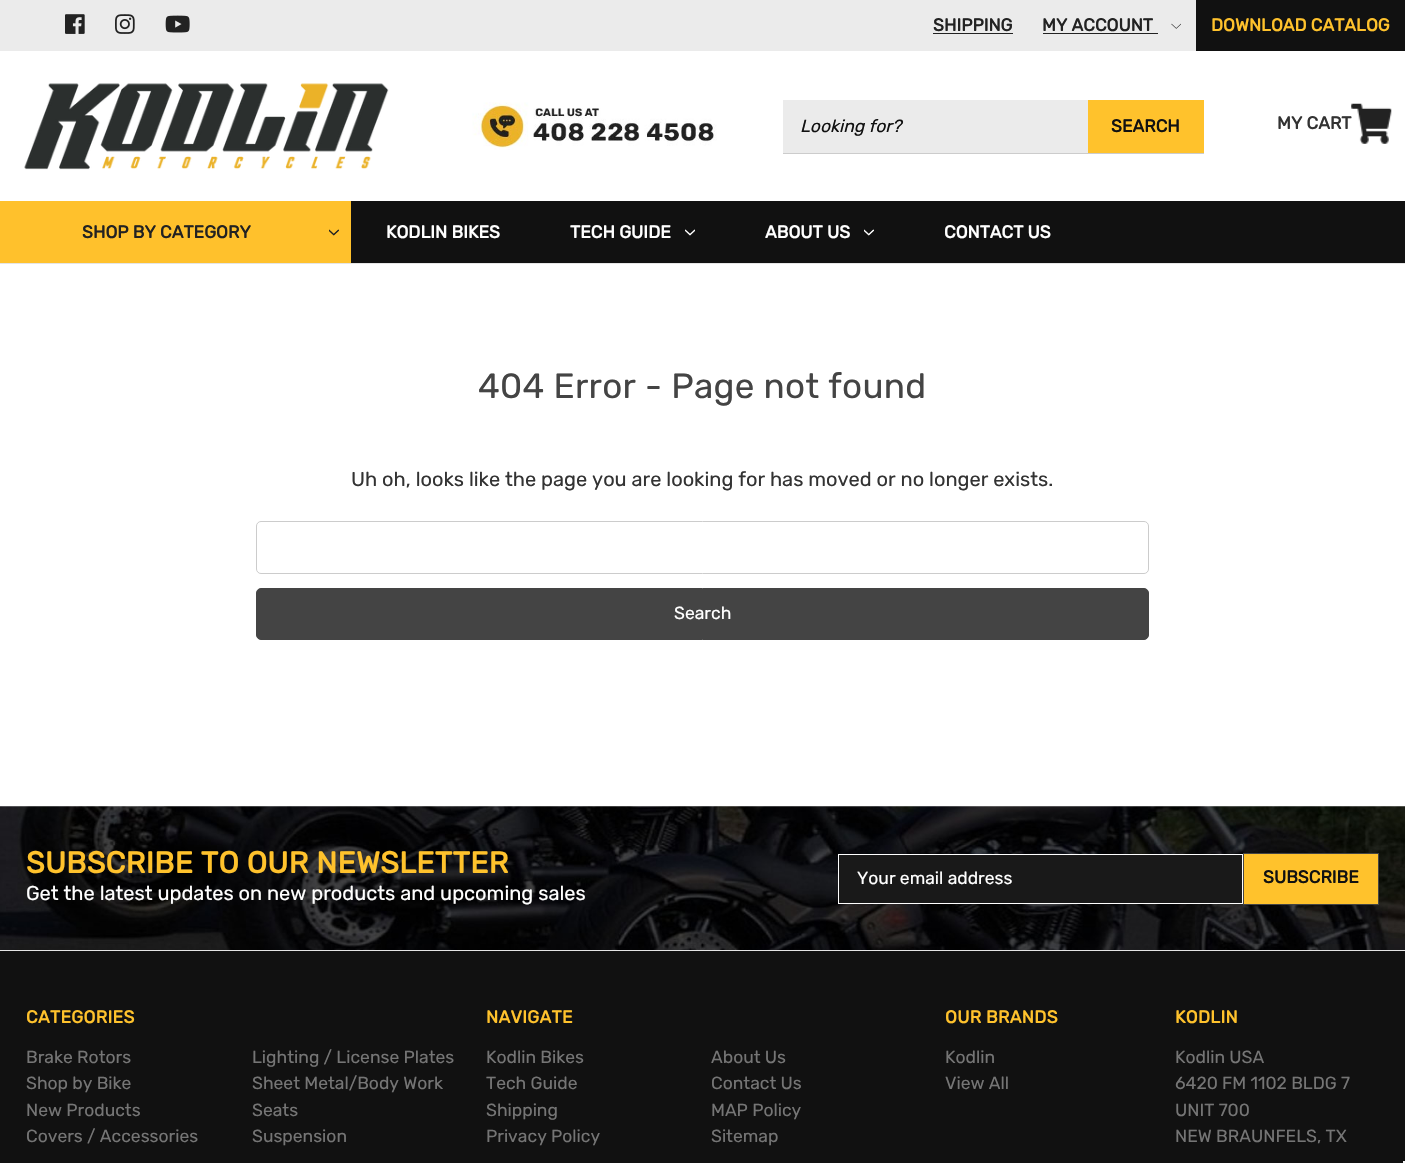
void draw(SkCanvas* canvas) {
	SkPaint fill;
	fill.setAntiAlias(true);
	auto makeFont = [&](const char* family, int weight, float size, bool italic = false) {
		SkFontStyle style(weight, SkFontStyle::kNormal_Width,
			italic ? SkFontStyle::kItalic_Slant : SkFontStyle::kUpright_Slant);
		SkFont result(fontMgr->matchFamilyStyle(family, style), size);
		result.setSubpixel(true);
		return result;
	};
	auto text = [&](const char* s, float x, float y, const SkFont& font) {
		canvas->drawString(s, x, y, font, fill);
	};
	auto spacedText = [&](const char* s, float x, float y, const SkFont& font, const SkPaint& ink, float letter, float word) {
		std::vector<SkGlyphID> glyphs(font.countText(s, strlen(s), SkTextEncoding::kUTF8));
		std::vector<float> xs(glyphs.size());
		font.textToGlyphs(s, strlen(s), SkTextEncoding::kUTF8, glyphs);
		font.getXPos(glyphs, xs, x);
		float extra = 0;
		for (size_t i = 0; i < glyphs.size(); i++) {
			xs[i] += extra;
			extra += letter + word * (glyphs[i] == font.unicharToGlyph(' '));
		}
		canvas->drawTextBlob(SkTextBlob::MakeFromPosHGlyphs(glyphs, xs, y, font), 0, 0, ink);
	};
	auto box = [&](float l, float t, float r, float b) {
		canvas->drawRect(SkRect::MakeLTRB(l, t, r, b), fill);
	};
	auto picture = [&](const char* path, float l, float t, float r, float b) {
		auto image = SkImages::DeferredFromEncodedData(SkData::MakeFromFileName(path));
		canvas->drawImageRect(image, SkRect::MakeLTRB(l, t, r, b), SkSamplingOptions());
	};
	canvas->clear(0xFFFFFFFF);
	fill.setColor(0xFFE5E5E5);
	box(0, 263, 1405, 264);
	fill.setColor(0xFFEBEBEB);
	box(0, 0, 1196, 51);
	picture("image0.png", 65, 14, 85, 34);
	picture("image1.png", 115, 14, 135, 34);
	picture("image2.png", 165, 15, 190, 33);
	fill.setColor(0xFF222222);
	box(933, 33, 1013, 34);
	box(1043, 33, 1158, 34);
	picture("image3.png", 1171, 23, 1181, 29);
	fill.setColor(0xFF111111);
	box(1196, 0, 1405, 51);
	picture("image4.png", 24, 83, 389, 170);
	picture("image5.png", 472, 102, 717, 150);
	fill.setColor(0xFFEBEBEB);
	box(783, 100, 1088, 153);
	fill.setColor(0xFFFFC22C);
	box(1088, 100, 1204, 153);
	fill.setColor(0xFFCCCCCC);
	box(783, 153, 1204, 154);
	picture("image6.png", 1351, 103, 1392, 144);
	fill.setColor(0xFF111111);
	box(351, 201, 1405, 263);
	fill.setColor(0xFFFFC12C);
	box(0, 201, 351, 263);
	picture("image7.png", 329, 229, 339, 236);
	picture("image8.png", 685, 229, 695, 236);
	picture("image9.png", 864, 229, 874, 236);
	fill.setStyle(SkPaint::kStroke_Style);
	fill.setStrokeWidth(1);
	fill.setColor(0xFFCCCCCC);
	canvas->drawRoundRect(SkRect::MakeLTRB(256.5f, 521.5f, 1148.5f, 573.5f), 4.5f, 4.5f, fill);
	fill.setStyle(SkPaint::kFill_Style);
	fill.setColor(0xFF444444);
	canvas->drawRoundRect(SkRect::MakeLTRB(256.5f, 588.5f, 1148.5f, 639.5f), 4.5f, 4.5f, fill);
	fill.setStyle(SkPaint::kStroke_Style);
	canvas->drawRoundRect(SkRect::MakeLTRB(256.5f, 588.5f, 1148.5f, 639.5f), 4.5f, 4.5f, fill);
	picture("image10.png", 0, 806, 1405, 950);
	fill.setStyle(SkPaint::kFill_Style);
	fill.setColor(0xFF191919);
	canvas->drawRect(SkRect::MakeLTRB(838.5f, 854.5f, 1242.5f, 903.5f), fill);
	fill.setStyle(SkPaint::kStroke_Style);
	fill.setColor(0xFFFFFFFF);
	canvas->drawRect(SkRect::MakeLTRB(838.5f, 854.5f, 1242.5f, 903.5f), fill);
	fill.setStyle(SkPaint::kFill_Style);
	fill.setColor(0xFFFFC22C);
	canvas->drawRect(SkRect::MakeLTRB(1243.5f, 853.5f, 1378.5f, 904.5f), fill);
	fill.setStyle(SkPaint::kStroke_Style);
	fill.setColor(0xFF444444);
	canvas->drawRect(SkRect::MakeLTRB(1243.5f, 853.5f, 1378.5f, 904.5f), fill);
	fill.setStyle(SkPaint::kFill_Style);
	fill.setColor(0xFF111111);
	box(0, 951, 1405, 1163);
	fill.setColor(0xFFE5E5E5);
	box(0, 950, 1405, 951);
	fill.setColor(0xFFF5F5F5);
	box(1403, 1161, 1405, 1163);
	auto font1 = makeFont("Rubik", 700, 17.5f);
	fill.setColor(0xFF222222);
	text("SHIPPING", 933, 31, font1);
	text("MY ACCOUNT", 1042, 31, font1);
	fill.setColor(0xFFFFC22C);
	text("DOWNLOAD CATALOG", 1211, 31, font1);
	auto font2 = makeFont("Rubik", 300, 17.5f, true);
	fill.setColor(0xFF111111);
	text("Looking for?", 800, 132, font2);
	text("SEARCH", 1111, 132, font1);
	fill.setColor(0xFF333333);
	text("MY CART", 1277, 129, font1);
	fill.setColor(0xFF222222);
	text("SHOP BY CATEGORY", 82, 238, font1);
	fill.setColor(0xFFFFFFFF);
	text("KODLIN BIKES", 386, 238, font1);
	text("TECH GUIDE", 570, 238, font1);
	text("ABOUT US", 765, 238, font1);
	text("CONTACT US", 944, 238, font1);
	auto font3 = makeFont("Rubik", 300, 35);
	fill.setColor(0xFF444444);
	spacedText("404 Error - Page not found", 478, 398, font3, fill, 0.3f, 0);
	auto font4 = makeFont("Rubik", 300, 20);
	fill.setColor(0xFF333333);
	text("Uh oh, looks like the page you are looking for has moved or no longer exists.", 351, 486, font4);
	auto font5 = makeFont("Rubik", 300, 17.5f);
	fill.setColor(0xFFFFFFFF);
	text("Search", 674, 619, font5);
	auto font6 = makeFont("Rubik", 700, 30);
	fill.setColor(0xFFFFC22C);
	spacedText("SUBSCRIBE TO OUR NEWSLETTER", 26, 873, font6, fill, 0.3f, 0);
	fill.setColor(0xFFFFFFFF);
	text("Get the latest updates on new products and upcoming sales", 26, 900, font4);
	text("Your email address", 857, 884, font5);
	fill.setColor(0xFF111111);
	text("SUBSCRIBE", 1263, 883, font1);
	fill.setColor(0xFFFFC22C);
	spacedText("CATEGORIES", 26, 1023, font1, fill, 0.3f, 0);
	fill.setColor(0xFF757575);
	text("Brake Rotors", 26, 1063, font5);
	text("Lighting / License Plates", 252, 1063, font5);
	text("Shop by Bike", 26, 1089, font5);
	text("Sheet Metal/Body Work", 252, 1089, font5);
	text("New Products", 26, 1116, font5);
	text("Seats", 252, 1116, font5);
	text("Covers / Accessories", 26, 1142, font5);
	text("Suspension", 252, 1142, font5);
	fill.setColor(0xFFFFC22C);
	spacedText("NAVIGATE", 486, 1023, font1, fill, 0.3f, 0);
	fill.setColor(0xFF757575);
	text("Kodlin Bikes", 486, 1063, font5);
	text("About Us", 711, 1063, font5);
	text("Tech Guide", 486, 1089, font5);
	text("Contact Us", 711, 1089, font5);
	text("Shipping", 486, 1116, font5);
	text("MAP Policy", 711, 1116, font5);
	text("Privacy Policy", 486, 1142, font5);
	text("Sitemap", 711, 1142, font5);
	fill.setColor(0xFFFFC22C);
	spacedText("OUR BRANDS", 945, 1023, font1, fill, 0.3f, 0);
	fill.setColor(0xFF757575);
	text("Kodlin", 945, 1063, font5);
	text("View All", 945, 1089, font5);
	fill.setColor(0xFFFFC22C);
	spacedText("KODLIN", 1175, 1023, font1, fill, 0.3f, 0);
	fill.setColor(0xFF757575);
	text("Kodlin USA", 1175, 1063, font5);
	text("6420 FM 1102 BLDG 7", 1175, 1089, font5);
	text("UNIT 700", 1175, 1116, font5);
	text("NEW BRAUNFELS, TX", 1175, 1142, font5);
}
